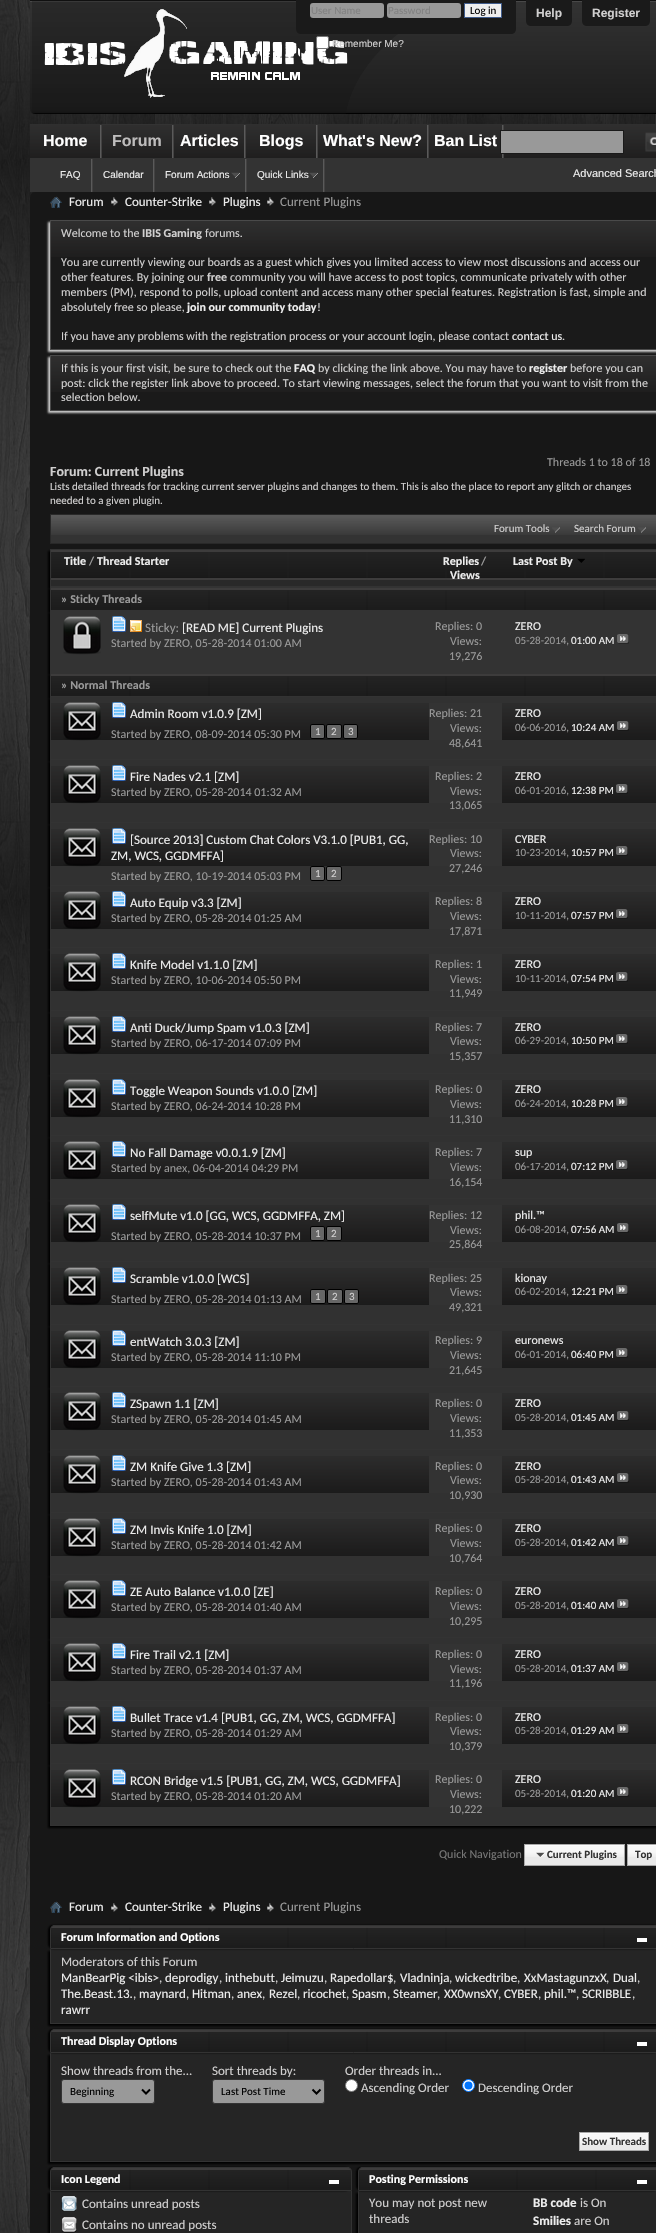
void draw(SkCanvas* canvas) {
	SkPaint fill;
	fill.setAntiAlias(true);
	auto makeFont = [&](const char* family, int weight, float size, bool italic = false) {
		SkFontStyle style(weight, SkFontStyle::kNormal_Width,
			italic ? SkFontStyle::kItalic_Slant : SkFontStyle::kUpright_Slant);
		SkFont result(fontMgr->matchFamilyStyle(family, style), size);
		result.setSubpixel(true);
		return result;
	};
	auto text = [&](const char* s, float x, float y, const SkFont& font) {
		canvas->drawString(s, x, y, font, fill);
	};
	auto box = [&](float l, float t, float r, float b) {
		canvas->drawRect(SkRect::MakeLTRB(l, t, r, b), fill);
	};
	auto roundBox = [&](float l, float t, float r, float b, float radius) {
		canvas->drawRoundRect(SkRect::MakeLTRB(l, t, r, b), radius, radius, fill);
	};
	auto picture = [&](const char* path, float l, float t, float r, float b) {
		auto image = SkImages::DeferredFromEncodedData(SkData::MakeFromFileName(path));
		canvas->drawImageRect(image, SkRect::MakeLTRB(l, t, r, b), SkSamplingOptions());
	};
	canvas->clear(0xFFFFFFFF);
	picture("image0.png", 0, 0, 656, 2233);
	picture("image1.png", 30, 0, 656, 114);
	picture("image2.png", 32, 1, 398, 114);
	fill.setColor(0xFF1A1A1A);
	canvas->drawPath(SkPathBuilder().moveTo(296, 0).lineTo(516, 0).lineTo(516, 29).cubicTo(516, 32, 514, 34, 511, 34).lineTo(301, 34).cubicTo(298, 34, 296, 32, 296, 29).close().detach(), fill);
	fill.setColor(0xFF999999);
	roundBox(310, 3, 384, 18, 3);
	roundBox(387, 3, 461, 18, 3);
	fill.setColor(0xFFEFEFEF);
	canvas->drawRect(SkRect::MakeLTRB(464.5f, 3.5f, 501.5f, 17.5f), fill);
	fill.setStyle(SkPaint::kStroke_Style);
	fill.setStrokeWidth(1);
	fill.setColor(0xFF415D8D);
	canvas->drawRect(SkRect::MakeLTRB(464.5f, 3.5f, 501.5f, 17.5f), fill);
	fill.setStyle(SkPaint::kFill_Style);
	fill.setColor(0xFFFFFFFF);
	canvas->drawRoundRect(SkRect::MakeLTRB(316.5f, 36.5f, 328.5f, 48.5f), 1.5f, 1.5f, fill);
	fill.setStyle(SkPaint::kStroke_Style);
	fill.setColor(0xFF767676);
	canvas->drawRoundRect(SkRect::MakeLTRB(316.5f, 36.5f, 328.5f, 48.5f), 1.5f, 1.5f, fill);
	fill.setStyle(SkPaint::kFill_Style);
	fill.setColor(0xFF1A1A1A);
	canvas->drawPath(SkPathBuilder().moveTo(526, 0).lineTo(572, 0).lineTo(572, 21).cubicTo(572, 24, 570, 26, 567, 26).lineTo(531, 26).cubicTo(528, 26, 526, 24, 526, 21).close().detach(), fill);
	canvas->drawPath(SkPathBuilder().moveTo(582, 0).lineTo(650, 0).lineTo(650, 21).cubicTo(650, 24, 648, 26, 645, 26).lineTo(587, 26).cubicTo(584, 26, 582, 24, 582, 21).close().detach(), fill);
	fill.setColor(0xFF333333);
	box(30, 158, 656, 192);
	picture("image3.png", 100, 124, 656, 158);
	picture("image4.png", 100, 125, 102, 158);
	picture("image5.png", 30, 124, 100, 158);
	picture("image4.png", 172, 125, 174, 158);
	box(102, 124, 172, 125);
	picture("image6.png", 102, 125, 172, 158);
	picture("image4.png", 244, 125, 246, 158);
	picture("image5.png", 174, 124, 244, 158);
	picture("image4.png", 316, 125, 318, 158);
	picture("image5.png", 246, 124, 316, 158);
	picture("image4.png", 427, 125, 429, 158);
	picture("image7.png", 318, 124, 427, 158);
	picture("image4.png", 502, 125, 504, 158);
	picture("image8.png", 429, 124, 502, 158);
	picture("image4.png", 91, 159, 93, 192);
	picture("image4.png", 153, 159, 155, 192);
	picture("image4.png", 245, 159, 247, 192);
	picture("image9.png", 231, 172, 240, 178);
	picture("image4.png", 323, 159, 325, 192);
	picture("image9.png", 309, 172, 318, 178);
	fill.setColor(0xFF999999);
	canvas->drawRect(SkRect::MakeLTRB(500.5f, 130.5f, 623.5f, 153.5f), fill);
	fill.setStyle(SkPaint::kStroke_Style);
	fill.setColor(0xFF1A1A1A);
	canvas->drawRect(SkRect::MakeLTRB(500.5f, 130.5f, 623.5f, 153.5f), fill);
	picture("image10.png", 645, 132, 656, 152);
	fill.setStyle(SkPaint::kFill_Style);
	fill.setColor(0xFF171717);
	roundBox(30, 192, 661, 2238, 5);
	picture("image11.png", 50, 196, 62, 208);
	picture("image12.png", 111, 197, 118, 206);
	picture("image12.png", 209, 197, 216, 206);
	picture("image12.png", 267, 197, 274, 206);
	fill.setColor(0xFFC8C8C8);
	fill.setMaskFilter(SkMaskFilter::MakeBlur(kNormal_SkBlurStyle, 1));
	canvas->drawRect(SkRect::MakeLTRB(48, 222, 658, 352), fill);
	fill.setMaskFilter(nullptr);
	fill.setColor(0xFF1A1A1A);
	box(51, 257, 656, 349);
	picture("image13.png", 51, 221, 656, 257);
	fill.setStyle(SkPaint::kStroke_Style);
	fill.setColor(0xFF4A4A4A);
	canvas->drawRect(SkRect::MakeLTRB(50.5f, 220.5f, 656.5f, 349.5f), fill);
	fill.setStyle(SkPaint::kFill_Style);
	fill.setColor(0xFFC8C8C8);
	fill.setMaskFilter(SkMaskFilter::MakeBlur(kNormal_SkBlurStyle, 1));
	canvas->drawRect(SkRect::MakeLTRB(48, 357, 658, 413), fill);
	fill.setMaskFilter(nullptr);
	fill.setColor(0xFF1A1A1A);
	box(51, 392, 656, 410);
	picture("image13.png", 51, 356, 656, 392);
	fill.setStyle(SkPaint::kStroke_Style);
	fill.setColor(0xFF4A4A4A);
	canvas->drawRect(SkRect::MakeLTRB(50.5f, 355.5f, 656.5f, 410.5f), fill);
	fill.setStyle(SkPaint::kFill_Style);
	fill.setColor(0xFF333333);
	box(51, 515, 656, 543);
	picture("image14.png", 51, 515, 656, 535);
	fill.setStyle(SkPaint::kStroke_Style);
	fill.setColor(0xFF292929);
	canvas->drawRect(SkRect::MakeLTRB(50.5f, 514.5f, 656.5f, 543.5f), fill);
	picture("image15.png", 552, 527, 560, 533);
	picture("image15.png", 638, 527, 646, 533);
	fill.setStyle(SkPaint::kFill_Style);
	fill.setColor(0xFF000000);
	fill.setMaskFilter(SkMaskFilter::MakeBlur(kNormal_SkBlurStyle, 1));
	canvas->drawRect(SkRect::MakeLTRB(48, 551, 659, 589), fill);
	fill.setMaskFilter(nullptr);
	fill.setColor(0xFF292929);
	box(51, 552, 656, 586);
	picture("image16.png", 51, 550, 656, 580);
	fill.setStyle(SkPaint::kStroke_Style);
	fill.setColor(0xFF333333);
	canvas->drawRect(SkRect::MakeLTRB(50.5f, 549.5f, 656.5f, 586.5f), fill);
	picture("image17.png", 577, 558, 585, 563);
	fill.setStyle(SkPaint::kFill_Style);
	fill.setColor(0xFF000000);
	fill.setMaskFilter(SkMaskFilter::MakeBlur(kNormal_SkBlurStyle, 1));
	canvas->drawRect(SkRect::MakeLTRB(48, 589, 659, 613), fill);
	fill.setMaskFilter(nullptr);
	picture("image18.png", 51, 588, 656, 610);
	fill.setStyle(SkPaint::kStroke_Style);
	fill.setColor(0xFF333333);
	canvas->drawRect(SkRect::MakeLTRB(50.5f, 587.5f, 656.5f, 610.5f), fill);
	fill.setStyle(SkPaint::kFill_Style);
	fill.setColor(0xFF000000);
	fill.setMaskFilter(SkMaskFilter::MakeBlur(kNormal_SkBlurStyle, 1));
	canvas->drawRect(SkRect::MakeLTRB(48, 613, 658, 675), fill);
	fill.setMaskFilter(nullptr);
	fill.setColor(0xFF333333);
	box(50, 611, 656, 673);
	picture("image19.png", 63, 616, 101, 655);
	picture("image20.png", 112, 616, 126, 632);
	picture("image21.png", 130, 620, 142, 632);
	picture("image22.png", 617, 634, 629, 644);
	fill.setColor(0xFF000000);
	fill.setMaskFilter(SkMaskFilter::MakeBlur(kNormal_SkBlurStyle, 1));
	canvas->drawRect(SkRect::MakeLTRB(48, 675, 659, 699), fill);
	fill.setMaskFilter(nullptr);
	picture("image18.png", 51, 674, 656, 696);
	fill.setStyle(SkPaint::kStroke_Style);
	fill.setColor(0xFF333333);
	canvas->drawRect(SkRect::MakeLTRB(50.5f, 673.5f, 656.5f, 696.5f), fill);
	fill.setStyle(SkPaint::kFill_Style);
	fill.setColor(0xFF000000);
	fill.setMaskFilter(SkMaskFilter::MakeBlur(kNormal_SkBlurStyle, 1));
	canvas->drawRect(SkRect::MakeLTRB(48, 699, 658, 762), fill);
	fill.setMaskFilter(nullptr);
	fill.setColor(0xFF313131);
	box(51, 697, 656, 759);
	picture("image23.png", 51, 703, 656, 740);
	fill.setColor(0xFF333333);
	box(50, 759, 656, 760);
	box(50, 697, 51, 760);
	picture("image24.png", 63, 702, 101, 741);
	picture("image25.png", 112, 702, 126, 718);
	fill.setColor(0xFF666666);
	canvas->drawRoundRect(SkRect::MakeLTRB(310.5f, 724.5f, 324.5f, 738.5f), 1.5f, 1.5f, fill);
	fill.setStyle(SkPaint::kStroke_Style);
	fill.setColor(0xFF000000);
	canvas->drawRoundRect(SkRect::MakeLTRB(310.5f, 724.5f, 324.5f, 738.5f), 1.5f, 1.5f, fill);
	fill.setStyle(SkPaint::kFill_Style);
	fill.setColor(0xFF666666);
	canvas->drawRoundRect(SkRect::MakeLTRB(326.5f, 724.5f, 341.5f, 738.5f), 1.5f, 1.5f, fill);
	fill.setStyle(SkPaint::kStroke_Style);
	fill.setColor(0xFF000000);
	canvas->drawRoundRect(SkRect::MakeLTRB(326.5f, 724.5f, 341.5f, 738.5f), 1.5f, 1.5f, fill);
	fill.setStyle(SkPaint::kFill_Style);
	fill.setColor(0xFF666666);
	canvas->drawRoundRect(SkRect::MakeLTRB(343.5f, 724.5f, 357.5f, 738.5f), 1.5f, 1.5f, fill);
	fill.setStyle(SkPaint::kStroke_Style);
	fill.setColor(0xFF000000);
	canvas->drawRoundRect(SkRect::MakeLTRB(343.5f, 724.5f, 357.5f, 738.5f), 1.5f, 1.5f, fill);
	fill.setStyle(SkPaint::kFill_Style);
	fill.setColor(0xFF333333);
	box(429, 703, 502, 740);
	picture("image26.png", 617, 721, 629, 731);
	fill.setColor(0xFF000000);
	fill.setMaskFilter(SkMaskFilter::MakeBlur(kNormal_SkBlurStyle, 1));
	canvas->drawRect(SkRect::MakeLTRB(48, 762, 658, 825), fill);
	fill.setMaskFilter(nullptr);
	fill.setColor(0xFF313131);
	box(51, 760, 656, 822);
	picture("image23.png", 51, 766, 656, 803);
	fill.setColor(0xFF333333);
	box(50, 822, 656, 823);
	box(50, 760, 51, 823);
	picture("image24.png", 63, 765, 101, 804);
	picture("image25.png", 112, 765, 126, 781);
	box(429, 766, 502, 803);
	picture("image26.png", 616, 784, 628, 794);
	fill.setColor(0xFF000000);
	fill.setMaskFilter(SkMaskFilter::MakeBlur(kNormal_SkBlurStyle, 1));
	canvas->drawRect(SkRect::MakeLTRB(48, 825, 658, 888), fill);
	fill.setMaskFilter(nullptr);
	fill.setColor(0xFF313131);
	box(51, 823, 656, 885);
	picture("image23.png", 51, 829, 656, 866);
	fill.setColor(0xFF333333);
	box(50, 885, 656, 886);
	box(50, 823, 51, 886);
	picture("image24.png", 63, 828, 101, 867);
	picture("image25.png", 112, 828, 126, 844);
	fill.setColor(0xFF666666);
	canvas->drawRoundRect(SkRect::MakeLTRB(310.5f, 866.5f, 324.5f, 880.5f), 1.5f, 1.5f, fill);
	fill.setStyle(SkPaint::kStroke_Style);
	fill.setColor(0xFF000000);
	canvas->drawRoundRect(SkRect::MakeLTRB(310.5f, 866.5f, 324.5f, 880.5f), 1.5f, 1.5f, fill);
	fill.setStyle(SkPaint::kFill_Style);
	fill.setColor(0xFF666666);
	canvas->drawRoundRect(SkRect::MakeLTRB(326.5f, 866.5f, 341.5f, 880.5f), 1.5f, 1.5f, fill);
	fill.setStyle(SkPaint::kStroke_Style);
	fill.setColor(0xFF000000);
	canvas->drawRoundRect(SkRect::MakeLTRB(326.5f, 866.5f, 341.5f, 880.5f), 1.5f, 1.5f, fill);
	fill.setStyle(SkPaint::kFill_Style);
	fill.setColor(0xFF333333);
	box(429, 829, 502, 866);
	picture("image27.png", 616, 846, 628, 856);
	fill.setColor(0xFF000000);
	fill.setMaskFilter(SkMaskFilter::MakeBlur(kNormal_SkBlurStyle, 1));
	canvas->drawRect(SkRect::MakeLTRB(48, 888, 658, 950), fill);
	fill.setMaskFilter(nullptr);
	fill.setColor(0xFF313131);
	box(51, 886, 656, 947);
	picture("image23.png", 51, 892, 656, 929);
	fill.setColor(0xFF333333);
	box(50, 947, 656, 948);
	box(50, 886, 51, 948);
	picture("image24.png", 63, 891, 101, 930);
	picture("image25.png", 112, 891, 126, 907);
	box(429, 892, 502, 929);
	picture("image27.png", 616, 909, 628, 919);
	fill.setColor(0xFF000000);
	fill.setMaskFilter(SkMaskFilter::MakeBlur(kNormal_SkBlurStyle, 1));
	canvas->drawRect(SkRect::MakeLTRB(48, 950, 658, 1013), fill);
	fill.setMaskFilter(nullptr);
	fill.setColor(0xFF313131);
	box(51, 948, 656, 1010);
	picture("image23.png", 51, 954, 656, 991);
	fill.setColor(0xFF333333);
	box(50, 1010, 656, 1011);
	box(50, 948, 51, 1011);
	picture("image24.png", 63, 953, 101, 992);
	picture("image25.png", 112, 953, 126, 969);
	box(429, 954, 502, 991);
	picture("image26.png", 616, 972, 628, 982);
	fill.setColor(0xFF000000);
	fill.setMaskFilter(SkMaskFilter::MakeBlur(kNormal_SkBlurStyle, 1));
	canvas->drawRect(SkRect::MakeLTRB(48, 1013, 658, 1076), fill);
	fill.setMaskFilter(nullptr);
	fill.setColor(0xFF313131);
	box(51, 1011, 656, 1073);
	picture("image23.png", 51, 1017, 656, 1054);
	fill.setColor(0xFF333333);
	box(50, 1073, 656, 1074);
	box(50, 1011, 51, 1074);
	picture("image24.png", 63, 1016, 101, 1055);
	picture("image25.png", 112, 1016, 126, 1032);
	box(429, 1017, 502, 1054);
	picture("image27.png", 616, 1034, 628, 1044);
	fill.setColor(0xFF000000);
	fill.setMaskFilter(SkMaskFilter::MakeBlur(kNormal_SkBlurStyle, 1));
	canvas->drawRect(SkRect::MakeLTRB(48, 1076, 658, 1138), fill);
	fill.setMaskFilter(nullptr);
	fill.setColor(0xFF313131);
	box(51, 1074, 656, 1135);
	picture("image23.png", 51, 1080, 656, 1117);
	fill.setColor(0xFF333333);
	box(50, 1135, 656, 1136);
	box(50, 1074, 51, 1136);
	picture("image24.png", 63, 1079, 101, 1118);
	picture("image25.png", 112, 1079, 126, 1095);
	box(429, 1080, 502, 1117);
	picture("image27.png", 616, 1097, 628, 1107);
	fill.setColor(0xFF000000);
	fill.setMaskFilter(SkMaskFilter::MakeBlur(kNormal_SkBlurStyle, 1));
	canvas->drawRect(SkRect::MakeLTRB(48, 1138, 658, 1201), fill);
	fill.setMaskFilter(nullptr);
	fill.setColor(0xFF313131);
	box(51, 1136, 656, 1198);
	picture("image23.png", 51, 1142, 656, 1179);
	fill.setColor(0xFF333333);
	box(50, 1198, 656, 1199);
	box(50, 1136, 51, 1199);
	picture("image24.png", 63, 1141, 101, 1180);
	picture("image25.png", 112, 1141, 126, 1157);
	box(429, 1142, 502, 1179);
	picture("image26.png", 616, 1160, 628, 1170);
	fill.setColor(0xFF000000);
	fill.setMaskFilter(SkMaskFilter::MakeBlur(kNormal_SkBlurStyle, 1));
	canvas->drawRect(SkRect::MakeLTRB(48, 1201, 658, 1264), fill);
	fill.setMaskFilter(nullptr);
	fill.setColor(0xFF313131);
	box(51, 1199, 656, 1261);
	picture("image23.png", 51, 1205, 656, 1242);
	fill.setColor(0xFF333333);
	box(50, 1261, 656, 1262);
	box(50, 1199, 51, 1262);
	picture("image24.png", 63, 1204, 101, 1243);
	picture("image25.png", 112, 1204, 126, 1220);
	fill.setColor(0xFF666666);
	canvas->drawRoundRect(SkRect::MakeLTRB(310.5f, 1226.5f, 324.5f, 1240.5f), 1.5f, 1.5f, fill);
	fill.setStyle(SkPaint::kStroke_Style);
	fill.setColor(0xFF000000);
	canvas->drawRoundRect(SkRect::MakeLTRB(310.5f, 1226.5f, 324.5f, 1240.5f), 1.5f, 1.5f, fill);
	fill.setStyle(SkPaint::kFill_Style);
	fill.setColor(0xFF666666);
	canvas->drawRoundRect(SkRect::MakeLTRB(326.5f, 1226.5f, 341.5f, 1240.5f), 1.5f, 1.5f, fill);
	fill.setStyle(SkPaint::kStroke_Style);
	fill.setColor(0xFF000000);
	canvas->drawRoundRect(SkRect::MakeLTRB(326.5f, 1226.5f, 341.5f, 1240.5f), 1.5f, 1.5f, fill);
	fill.setStyle(SkPaint::kFill_Style);
	fill.setColor(0xFF333333);
	box(429, 1205, 502, 1242);
	picture("image26.png", 617, 1223, 629, 1233);
	fill.setColor(0xFF000000);
	fill.setMaskFilter(SkMaskFilter::MakeBlur(kNormal_SkBlurStyle, 1));
	canvas->drawRect(SkRect::MakeLTRB(48, 1264, 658, 1327), fill);
	fill.setMaskFilter(nullptr);
	fill.setColor(0xFF313131);
	box(51, 1262, 656, 1324);
	picture("image23.png", 51, 1268, 656, 1305);
	fill.setColor(0xFF333333);
	box(50, 1324, 656, 1325);
	box(50, 1262, 51, 1325);
	picture("image24.png", 63, 1267, 101, 1306);
	picture("image25.png", 112, 1267, 126, 1283);
	fill.setColor(0xFF666666);
	canvas->drawRoundRect(SkRect::MakeLTRB(310.5f, 1289.5f, 325.5f, 1303.5f), 1.5f, 1.5f, fill);
	fill.setStyle(SkPaint::kStroke_Style);
	fill.setColor(0xFF000000);
	canvas->drawRoundRect(SkRect::MakeLTRB(310.5f, 1289.5f, 325.5f, 1303.5f), 1.5f, 1.5f, fill);
	fill.setStyle(SkPaint::kFill_Style);
	fill.setColor(0xFF666666);
	canvas->drawRoundRect(SkRect::MakeLTRB(327.5f, 1289.5f, 342.5f, 1303.5f), 1.5f, 1.5f, fill);
	fill.setStyle(SkPaint::kStroke_Style);
	fill.setColor(0xFF000000);
	canvas->drawRoundRect(SkRect::MakeLTRB(327.5f, 1289.5f, 342.5f, 1303.5f), 1.5f, 1.5f, fill);
	fill.setStyle(SkPaint::kFill_Style);
	fill.setColor(0xFF666666);
	canvas->drawRoundRect(SkRect::MakeLTRB(344.5f, 1289.5f, 358.5f, 1303.5f), 1.5f, 1.5f, fill);
	fill.setStyle(SkPaint::kStroke_Style);
	fill.setColor(0xFF000000);
	canvas->drawRoundRect(SkRect::MakeLTRB(344.5f, 1289.5f, 358.5f, 1303.5f), 1.5f, 1.5f, fill);
	fill.setStyle(SkPaint::kFill_Style);
	fill.setColor(0xFF333333);
	box(429, 1268, 502, 1305);
	picture("image27.png", 616, 1285, 628, 1295);
	fill.setColor(0xFF000000);
	fill.setMaskFilter(SkMaskFilter::MakeBlur(kNormal_SkBlurStyle, 1));
	canvas->drawRect(SkRect::MakeLTRB(48, 1327, 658, 1389), fill);
	fill.setMaskFilter(nullptr);
	fill.setColor(0xFF313131);
	box(51, 1325, 656, 1386);
	picture("image23.png", 51, 1331, 656, 1368);
	fill.setColor(0xFF333333);
	box(50, 1386, 656, 1387);
	box(50, 1325, 51, 1387);
	picture("image24.png", 63, 1330, 101, 1369);
	picture("image25.png", 112, 1330, 126, 1346);
	box(429, 1331, 502, 1368);
	picture("image27.png", 616, 1348, 628, 1358);
	fill.setColor(0xFF000000);
	fill.setMaskFilter(SkMaskFilter::MakeBlur(kNormal_SkBlurStyle, 1));
	canvas->drawRect(SkRect::MakeLTRB(48, 1389, 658, 1452), fill);
	fill.setMaskFilter(nullptr);
	fill.setColor(0xFF313131);
	box(51, 1387, 656, 1449);
	picture("image23.png", 51, 1393, 656, 1430);
	fill.setColor(0xFF333333);
	box(50, 1449, 656, 1450);
	box(50, 1387, 51, 1450);
	picture("image24.png", 63, 1392, 101, 1431);
	picture("image25.png", 112, 1392, 126, 1408);
	box(429, 1393, 502, 1430);
	picture("image26.png", 617, 1411, 629, 1421);
	fill.setColor(0xFF000000);
	fill.setMaskFilter(SkMaskFilter::MakeBlur(kNormal_SkBlurStyle, 1));
	canvas->drawRect(SkRect::MakeLTRB(48, 1452, 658, 1515), fill);
	fill.setMaskFilter(nullptr);
	fill.setColor(0xFF313131);
	box(51, 1450, 656, 1512);
	picture("image23.png", 51, 1456, 656, 1493);
	fill.setColor(0xFF333333);
	box(50, 1512, 656, 1513);
	box(50, 1450, 51, 1513);
	picture("image24.png", 63, 1455, 101, 1494);
	picture("image25.png", 112, 1455, 126, 1471);
	box(429, 1456, 502, 1493);
	picture("image27.png", 617, 1473, 629, 1483);
	fill.setColor(0xFF000000);
	fill.setMaskFilter(SkMaskFilter::MakeBlur(kNormal_SkBlurStyle, 1));
	canvas->drawRect(SkRect::MakeLTRB(48, 1515, 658, 1577), fill);
	fill.setMaskFilter(nullptr);
	fill.setColor(0xFF313131);
	box(51, 1513, 656, 1574);
	picture("image23.png", 51, 1519, 656, 1556);
	fill.setColor(0xFF333333);
	box(50, 1574, 656, 1575);
	box(50, 1513, 51, 1575);
	picture("image24.png", 63, 1518, 101, 1557);
	picture("image25.png", 112, 1518, 126, 1534);
	box(429, 1519, 502, 1556);
	picture("image27.png", 617, 1536, 629, 1546);
	fill.setColor(0xFF000000);
	fill.setMaskFilter(SkMaskFilter::MakeBlur(kNormal_SkBlurStyle, 1));
	canvas->drawRect(SkRect::MakeLTRB(48, 1577, 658, 1640), fill);
	fill.setMaskFilter(nullptr);
	fill.setColor(0xFF313131);
	box(51, 1575, 656, 1637);
	picture("image23.png", 51, 1581, 656, 1618);
	fill.setColor(0xFF333333);
	box(50, 1637, 656, 1638);
	box(50, 1575, 51, 1638);
	picture("image24.png", 63, 1580, 101, 1619);
	picture("image25.png", 112, 1580, 126, 1596);
	box(429, 1581, 502, 1618);
	picture("image26.png", 617, 1599, 629, 1609);
	fill.setColor(0xFF000000);
	fill.setMaskFilter(SkMaskFilter::MakeBlur(kNormal_SkBlurStyle, 1));
	canvas->drawRect(SkRect::MakeLTRB(48, 1640, 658, 1703), fill);
	fill.setMaskFilter(nullptr);
	fill.setColor(0xFF313131);
	box(51, 1638, 656, 1700);
	picture("image23.png", 51, 1644, 656, 1681);
	fill.setColor(0xFF333333);
	box(50, 1700, 656, 1701);
	box(50, 1638, 51, 1701);
	picture("image24.png", 63, 1643, 101, 1682);
	picture("image25.png", 112, 1643, 126, 1659);
	box(429, 1644, 502, 1681);
	picture("image26.png", 617, 1662, 629, 1672);
	fill.setColor(0xFF000000);
	fill.setMaskFilter(SkMaskFilter::MakeBlur(kNormal_SkBlurStyle, 1));
	canvas->drawRect(SkRect::MakeLTRB(48, 1703, 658, 1766), fill);
	fill.setMaskFilter(nullptr);
	fill.setColor(0xFF313131);
	box(51, 1701, 656, 1763);
	picture("image23.png", 51, 1707, 656, 1744);
	fill.setColor(0xFF333333);
	box(50, 1763, 656, 1764);
	box(50, 1701, 51, 1764);
	picture("image24.png", 63, 1706, 101, 1745);
	picture("image25.png", 112, 1706, 126, 1722);
	box(429, 1707, 502, 1744);
	picture("image27.png", 617, 1724, 629, 1734);
	fill.setColor(0xFF000000);
	fill.setMaskFilter(SkMaskFilter::MakeBlur(kNormal_SkBlurStyle, 1));
	canvas->drawRect(SkRect::MakeLTRB(48, 1766, 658, 1828), fill);
	fill.setMaskFilter(nullptr);
	fill.setColor(0xFF313131);
	box(51, 1764, 656, 1825);
	picture("image23.png", 51, 1770, 656, 1807);
	fill.setColor(0xFF333333);
	box(50, 1825, 656, 1826);
	box(50, 1764, 51, 1826);
	picture("image24.png", 63, 1769, 101, 1808);
	picture("image25.png", 112, 1769, 126, 1785);
	box(429, 1770, 502, 1807);
	picture("image27.png", 617, 1787, 629, 1797);
	fill.setColor(0xFFE9E9E9);
	box(525, 1845, 624, 1865);
	picture("image28.png", 525, 1845, 624, 1857);
	box(628, 1845, 656, 1865);
	picture("image29.png", 628, 1845, 656, 1857);
	fill.setStyle(SkPaint::kStroke_Style);
	fill.setColor(0xFFA8A8A8);
	canvas->drawRect(SkRect::MakeLTRB(524.5f, 1844.5f, 624.5f, 1865.5f), fill);
	picture("image30.png", 536, 1852, 545, 1858);
	canvas->drawRect(SkRect::MakeLTRB(627.5f, 1844.5f, 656.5f, 1865.5f), fill);
	picture("image11.png", 50, 1901, 62, 1913);
	picture("image12.png", 111, 1903, 118, 1912);
	picture("image12.png", 209, 1903, 216, 1912);
	picture("image12.png", 267, 1903, 274, 1912);
	fill.setStyle(SkPaint::kFill_Style);
	fill.setColor(0xFF000000);
	fill.setMaskFilter(SkMaskFilter::MakeBlur(kNormal_SkBlurStyle, 1));
	canvas->drawRect(SkRect::MakeLTRB(48, 1951, 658, 2026), fill);
	fill.setMaskFilter(nullptr);
	fill.setColor(0xFF252525);
	box(51, 1949, 656, 2023);
	fill.setColor(0xFF333333);
	box(50, 2023, 656, 2024);
	box(50, 1949, 51, 2024);
	fill.setColor(0xFF000000);
	fill.setMaskFilter(SkMaskFilter::MakeBlur(kNormal_SkBlurStyle, 1));
	canvas->drawRoundRect(SkRect::MakeLTRB(48, 1925, 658, 1949), 5, 5, fill);
	fill.setMaskFilter(nullptr);
	picture("image31.png", 50, 1925, 656, 1948);
	fill.setStyle(SkPaint::kStroke_Style);
	fill.setColor(0xFF333333);
	canvas->drawPath(SkPathBuilder().moveTo(55, 1925.5f).lineTo(655, 1925.5f).cubicTo(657.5f, 1925.5f, 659.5f, 1927.5f, 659.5f, 1930).lineTo(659.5f, 1948.5f).lineTo(50.5f, 1948.5f).lineTo(50.5f, 1930).cubicTo(50.5f, 1927.5f, 52.5f, 1925.5f, 55, 1925.5f).close().detach(), fill);
	fill.setStyle(SkPaint::kFill_Style);
	fill.setColor(0xFFFFFFFF);
	box(637, 1938, 647, 1942);
	fill.setColor(0xFF000000);
	fill.setMaskFilter(SkMaskFilter::MakeBlur(kNormal_SkBlurStyle, 1));
	canvas->drawRect(SkRect::MakeLTRB(48, 2055, 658, 2164), fill);
	fill.setMaskFilter(nullptr);
	fill.setColor(0xFF252525);
	box(51, 2053, 656, 2161);
	fill.setColor(0xFF333333);
	box(50, 2161, 656, 2162);
	box(50, 2053, 51, 2162);
	fill.setColor(0xFF000000);
	fill.setMaskFilter(SkMaskFilter::MakeBlur(kNormal_SkBlurStyle, 1));
	canvas->drawRoundRect(SkRect::MakeLTRB(48, 2029, 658, 2053), 5, 5, fill);
	fill.setMaskFilter(nullptr);
	picture("image32.png", 50, 2029, 656, 2052);
	fill.setStyle(SkPaint::kStroke_Style);
	fill.setColor(0xFF333333);
	canvas->drawPath(SkPathBuilder().moveTo(55, 2029.5f).lineTo(655, 2029.5f).cubicTo(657.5f, 2029.5f, 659.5f, 2031.5f, 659.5f, 2034).lineTo(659.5f, 2052.5f).lineTo(50.5f, 2052.5f).lineTo(50.5f, 2034).cubicTo(50.5f, 2031.5f, 52.5f, 2029.5f, 55, 2029.5f).close().detach(), fill);
	fill.setStyle(SkPaint::kFill_Style);
	fill.setColor(0xFFFFFFFF);
	box(637, 2042, 647, 2046);
	fill.setColor(0xFF999999);
	canvas->drawRoundRect(SkRect::MakeLTRB(61.5f, 2079.5f, 154.5f, 2103.5f), 2.5f, 2.5f, fill);
	fill.setStyle(SkPaint::kStroke_Style);
	fill.setColor(0xFF333333);
	canvas->drawRoundRect(SkRect::MakeLTRB(61.5f, 2079.5f, 154.5f, 2103.5f), 2.5f, 2.5f, fill);
	fill.setStrokeWidth(2);
	fill.setColor(0xFF000000);
	canvas->drawPath(SkPathBuilder().moveTo(142, 2089.5f).lineTo(146, 2093.5f).lineTo(150, 2089.5f).detach(), fill);
	fill.setStyle(SkPaint::kFill_Style);
	fill.setColor(0xFF999999);
	canvas->drawRoundRect(SkRect::MakeLTRB(212.5f, 2079.5f, 324.5f, 2103.5f), 2.5f, 2.5f, fill);
	fill.setStyle(SkPaint::kStroke_Style);
	fill.setStrokeWidth(1);
	fill.setColor(0xFF333333);
	canvas->drawRoundRect(SkRect::MakeLTRB(212.5f, 2079.5f, 324.5f, 2103.5f), 2.5f, 2.5f, fill);
	fill.setStrokeWidth(2);
	fill.setColor(0xFF000000);
	canvas->drawPath(SkPathBuilder().moveTo(312.5f, 2089.5f).lineTo(316.5f, 2093.5f).lineTo(320.5f, 2089.5f).detach(), fill);
	fill.setStyle(SkPaint::kFill_Style);
	fill.setColor(0xFFFFFFFF);
	canvas->drawCircle(351.5f, 2085.5f, 6, fill);
	fill.setStyle(SkPaint::kStroke_Style);
	fill.setStrokeWidth(1);
	fill.setColor(0xFF767676);
	canvas->drawCircle(351.5f, 2085.5f, 6, fill);
	fill.setStyle(SkPaint::kFill_Style);
	fill.setColor(0xFFFFFFFF);
	canvas->drawCircle(468.5f, 2085.5f, 6, fill);
	fill.setStyle(SkPaint::kStroke_Style);
	fill.setColor(0xFF0075FF);
	canvas->drawCircle(468.5f, 2085.5f, 6, fill);
	fill.setStyle(SkPaint::kFill_Style);
	canvas->drawCircle(468.5f, 2085.5f, 4, fill);
	fill.setColor(0xFFE9E9E9);
	box(580, 2133, 648, 2150);
	picture("image33.png", 580, 2133, 648, 2145);
	fill.setStyle(SkPaint::kStroke_Style);
	fill.setColor(0xFFA8A8A8);
	canvas->drawRect(SkRect::MakeLTRB(579.5f, 2132.5f, 648.5f, 2150.5f), fill);
	fill.setStyle(SkPaint::kFill_Style);
	fill.setColor(0xFF000000);
	fill.setMaskFilter(SkMaskFilter::MakeBlur(kNormal_SkBlurStyle, 1));
	canvas->drawRect(SkRect::MakeLTRB(48, 2193, 350, 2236), fill);
	fill.setMaskFilter(nullptr);
	fill.setColor(0xFF252525);
	box(51, 2191, 351, 2233);
	fill.setColor(0xFF333333);
	box(351, 2191, 352, 2233);
	box(50, 2191, 51, 2233);
	fill.setColor(0xFF000000);
	fill.setMaskFilter(SkMaskFilter::MakeBlur(kNormal_SkBlurStyle, 1));
	canvas->drawRoundRect(SkRect::MakeLTRB(48, 2167, 350, 2191), 5, 5, fill);
	fill.setMaskFilter(nullptr);
	picture("image34.png", 50, 2167, 352, 2190);
	fill.setStyle(SkPaint::kStroke_Style);
	fill.setColor(0xFF333333);
	canvas->drawPath(SkPathBuilder().moveTo(55, 2167.5f).lineTo(347, 2167.5f).cubicTo(349.5f, 2167.5f, 351.5f, 2169.5f, 351.5f, 2172).lineTo(351.5f, 2190.5f).lineTo(50.5f, 2190.5f).lineTo(50.5f, 2172).cubicTo(50.5f, 2169.5f, 52.5f, 2167.5f, 55, 2167.5f).close().detach(), fill);
	fill.setStyle(SkPaint::kFill_Style);
	fill.setColor(0xFFFFFFFF);
	box(329, 2180, 339, 2184);
	picture("image35.png", 61, 2196, 77, 2212);
	picture("image36.png", 61, 2217, 77, 2233);
	fill.setColor(0xFF000000);
	fill.setMaskFilter(SkMaskFilter::MakeBlur(kNormal_SkBlurStyle, 1));
	canvas->drawRect(SkRect::MakeLTRB(356, 2193, 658, 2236), fill);
	fill.setMaskFilter(nullptr);
	fill.setColor(0xFF252525);
	box(359, 2191, 656, 2233);
	fill.setColor(0xFF333333);
	box(358, 2191, 359, 2233);
	fill.setColor(0xFF000000);
	fill.setMaskFilter(SkMaskFilter::MakeBlur(kNormal_SkBlurStyle, 1));
	canvas->drawRoundRect(SkRect::MakeLTRB(356, 2167, 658, 2191), 5, 5, fill);
	fill.setMaskFilter(nullptr);
	picture("image37.png", 358, 2167, 656, 2190);
	fill.setStyle(SkPaint::kStroke_Style);
	fill.setColor(0xFF333333);
	canvas->drawPath(SkPathBuilder().moveTo(363, 2167.5f).lineTo(655, 2167.5f).cubicTo(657.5f, 2167.5f, 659.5f, 2169.5f, 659.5f, 2172).lineTo(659.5f, 2190.5f).lineTo(358.5f, 2190.5f).lineTo(358.5f, 2172).cubicTo(358.5f, 2169.5f, 360.5f, 2167.5f, 363, 2167.5f).close().detach(), fill);
	fill.setStyle(SkPaint::kFill_Style);
	fill.setColor(0xFFFFFFFF);
	box(637, 2180, 647, 2184);
	auto font1 = makeFont("Carlito", 400, 11);
	fill.setColor(0xFF828282);
	text("User Name", 311, 14, font1);
	text("Password", 388, 14, font1);
	fill.setColor(0xFF000000);
	text("Log in", 470, 14, font1);
	auto font2 = makeFont("Liberation Sans", 400, 10);
	fill.setColor(0xFFD0CFCF);
	text("Remember Me?", 332, 47, font2);
	auto font3 = makeFont("Liberation Sans", 700, 12);
	text("Help", 536, 17, font3);
	text("Register", 592, 17, font3);
	auto font4 = makeFont("Liberation Sans", 700, 16);
	fill.setColor(0xFFFFFFFF);
	text("Home", 43, 146, font4);
	fill.setColor(0xFFBEBDBD);
	text("Forum", 112, 146, font4);
	fill.setColor(0xFFFFFFFF);
	text("Articles", 180, 146, font4);
	text("Blogs", 259, 146, font4);
	text("What's New?", 323, 146, font4);
	text("Ban List", 434, 146, font4);
	fill.setColor(0xFFEDEDED);
	text("FAQ", 60, 178, font2);
	text("Calendar", 103, 178, font2);
	text("Forum Actions", 165, 178, font2);
	text("Quick Links", 257, 178, font2);
	auto font5 = makeFont("Liberation Sans", 400, 11);
	text("Advanced Search", 573, 177, font5);
	auto font6 = makeFont("Carlito", 400, 13);
	text("Forum", 69, 206, font6);
	text("Counter-Strike", 125, 206, font6);
	text("Plugins", 223, 206, font6);
	fill.setColor(0xFF999999);
	text("Current Plugins", 280, 206, font6);
	auto font7 = makeFont("Carlito", 400, 12);
	fill.setColor(0xFFD0CFCF);
	text("Welcome to the", 61, 237, font7);
	auto font8 = makeFont("Carlito", 700, 12);
	text("IBIS Gaming", 142, 237, font8);
	text("forums.", 205, 237, font7);
	text("You are currently viewing our boards as a guest which gives you limited access to view most discussions and access our", 61, 266, font7);
	text("other features. By joining our", 61, 281, font7);
	text("free", 207, 281, font8);
	text("community you will have access to post topics, communicate privately with other", 230, 281, font7);
	text("members (PM), respond to polls, upload content and access many other special features. Registration is fast, simple and", 61, 296, font7);
	text("absolutely free so please,", 61, 311, font7);
	fill.setColor(0xFFEDEDED);
	text("join our community today", 187, 311, font8);
	fill.setColor(0xFFD0CFCF);
	text("!", 317, 311, font7);
	text("If you have any problems with the registration process or your account login, please contact", 61, 340, font7);
	fill.setColor(0xFFEDEDED);
	text("contact us", 512, 340, font7);
	fill.setColor(0xFFD0CFCF);
	text(".", 562, 340, font7);
	text("If this is your first visit, be sure to check out the", 61, 372, font7);
	fill.setColor(0xFFEDEDED);
	text("FAQ", 294, 372, font8);
	fill.setColor(0xFFD0CFCF);
	text("by clicking the link above. You may have to", 318, 372, font7);
	fill.setColor(0xFFEDEDED);
	text("register", 529, 372, font8);
	fill.setColor(0xFFD0CFCF);
	text("before you can", 570, 372, font7);
	text("post: click the register link above to proceed. To start viewing messages, select the forum that you want to visit from the", 61, 387, font7);
	text("selection below.", 61, 401, font7);
	fill.setColor(0xFF999999);
	text("Threads 1 to 18 of 18", 547, 466, font7);
	auto font9 = makeFont("Carlito", 700, 14);
	fill.setColor(0xFFD0CFCF);
	text("Forum: Current Plugins", 50, 476, font9);
	text("Lists detailed threads for tracking current server plugins and changes to them. This is also the place to report any glitch or changes", 50, 490, font1);
	text("needed to a given plugin.", 50, 504, font1);
	text("Forum Tools", 494, 532, font1);
	text("Search Forum", 574, 532, font1);
	fill.setColor(0xFFEDEDED);
	text("Title", 64, 565, font8);
	fill.setColor(0xFF999999);
	text("/", 89, 565, font8);
	fill.setColor(0xFFEDEDED);
	text("Thread Starter", 97, 565, font8);
	text("Replies", 443, 565, font8);
	fill.setColor(0xFF999999);
	text("/", 481, 565, font8);
	fill.setColor(0xFFEDEDED);
	text("Views", 450, 579, font8);
	text("Last Post By", 513, 565, font8);
	fill.setColor(0xFF999999);
	text("» Sticky Threads", 61, 603, font8);
	text("Sticky:", 145, 632, font6);
	fill.setColor(0xFFEDEDED);
	text("[READ ME] Current Plugins", 182, 632, font6);
	fill.setColor(0xFF999999);
	text("Started by ZERO, 05-28-2014 01:00 AM", 111, 647, font7);
	text("Replies: 0", 435, 630, font7);
	text("Views:", 450, 645, font7);
	text("19,276", 449, 660, font7);
	fill.setColor(0xFFEDEDED);
	text("ZERO", 515, 630, font7);
	fill.setColor(0xFF999999);
	text("05-28-2014,", 515, 644, font1);
	fill.setColor(0xFFEDEDED);
	text("01:00 AM", 571, 644, font1);
	fill.setColor(0xFF999999);
	text("» Normal Threads", 61, 689, font8);
	fill.setColor(0xFFEDEDED);
	text("Admin Room v1.0.9 [ZM]", 130, 718, font6);
	fill.setColor(0xFF999999);
	text("Started by ZERO, 08-09-2014 05:30 PM", 111, 738, font7);
	fill.setColor(0xFFD0CFCF);
	text("1", 315, 735, font1);
	text("2", 331, 735, font1);
	text("3", 348, 735, font1);
	fill.setColor(0xFF999999);
	text("Replies: 21", 429, 717, font7);
	text("Views:", 450, 732, font7);
	text("48,641", 449, 747, font7);
	fill.setColor(0xFFEDEDED);
	text("ZERO", 515, 717, font7);
	fill.setColor(0xFF999999);
	text("06-06-2016,", 515, 731, font1);
	fill.setColor(0xFFEDEDED);
	text("10:24 AM", 571, 731, font1);
	text("Fire Nades v2.1 [ZM]", 130, 781, font6);
	fill.setColor(0xFF999999);
	text("Started by ZERO, 05-28-2014 01:32 AM", 111, 796, font7);
	text("Replies: 2", 435, 780, font7);
	text("Views:", 450, 795, font7);
	text("13,065", 449, 809, font7);
	fill.setColor(0xFFEDEDED);
	text("ZERO", 515, 780, font7);
	fill.setColor(0xFF999999);
	text("06-01-2016,", 515, 794, font1);
	fill.setColor(0xFFEDEDED);
	text("12:38 PM", 571, 794, font1);
	text("[Source 2013] Custom Chat Colors V3.1.0 [PUB1, GG,", 130, 844, font6);
	text("ZM, WCS, GGDMFFA]", 111, 860, font6);
	fill.setColor(0xFF999999);
	text("Started by ZERO, 10-19-2014 05:03 PM", 111, 880, font7);
	fill.setColor(0xFFD0CFCF);
	text("1", 315, 877, font1);
	text("2", 331, 877, font1);
	fill.setColor(0xFF999999);
	text("Replies: 10", 429, 843, font7);
	text("Views:", 450, 857, font7);
	text("27,246", 449, 872, font7);
	fill.setColor(0xFFEDEDED);
	text("CYBER", 515, 843, font7);
	fill.setColor(0xFF999999);
	text("10-23-2014,", 515, 856, font1);
	fill.setColor(0xFFEDEDED);
	text("10:57 PM", 571, 856, font1);
	text("Auto Equip v3.3 [ZM]", 130, 907, font6);
	fill.setColor(0xFF999999);
	text("Started by ZERO, 05-28-2014 01:25 AM", 111, 922, font7);
	text("Replies: 8", 435, 905, font7);
	text("Views:", 450, 920, font7);
	text("17,871", 449, 935, font7);
	fill.setColor(0xFFEDEDED);
	text("ZERO", 515, 905, font7);
	fill.setColor(0xFF999999);
	text("10-11-2014,", 515, 919, font1);
	fill.setColor(0xFFEDEDED);
	text("07:57 PM", 571, 919, font1);
	text("Knife Model v1.1.0 [ZM]", 130, 969, font6);
	fill.setColor(0xFF999999);
	text("Started by ZERO, 10-06-2014 05:50 PM", 111, 984, font7);
	text("Replies: 1", 435, 968, font7);
	text("Views:", 450, 983, font7);
	text("11,949", 449, 997, font7);
	fill.setColor(0xFFEDEDED);
	text("ZERO", 515, 968, font7);
	fill.setColor(0xFF999999);
	text("10-11-2014,", 515, 982, font1);
	fill.setColor(0xFFEDEDED);
	text("07:54 PM", 571, 982, font1);
	text("Anti Duck/Jump Spam v1.0.3 [ZM]", 130, 1032, font6);
	fill.setColor(0xFF999999);
	text("Started by ZERO, 06-17-2014 07:09 PM", 111, 1047, font7);
	text("Replies: 7", 435, 1031, font7);
	text("Views:", 450, 1045, font7);
	text("15,357", 449, 1060, font7);
	fill.setColor(0xFFEDEDED);
	text("ZERO", 515, 1031, font7);
	fill.setColor(0xFF999999);
	text("06-29-2014,", 515, 1044, font1);
	fill.setColor(0xFFEDEDED);
	text("10:50 PM", 571, 1044, font1);
	text("Toggle Weapon Sounds v1.0.0 [ZM]", 130, 1095, font6);
	fill.setColor(0xFF999999);
	text("Started by ZERO, 06-24-2014 10:28 PM", 111, 1110, font7);
	text("Replies: 0", 435, 1093, font7);
	text("Views:", 450, 1108, font7);
	text("11,310", 449, 1123, font7);
	fill.setColor(0xFFEDEDED);
	text("ZERO", 515, 1093, font7);
	fill.setColor(0xFF999999);
	text("06-24-2014,", 515, 1107, font1);
	fill.setColor(0xFFEDEDED);
	text("10:28 PM", 571, 1107, font1);
	text("No Fall Damage v0.0.1.9 [ZM]", 130, 1157, font6);
	fill.setColor(0xFF999999);
	text("Started by anex, 06-04-2014 04:29 PM", 111, 1172, font7);
	text("Replies: 7", 435, 1156, font7);
	text("Views:", 450, 1171, font7);
	text("16,154", 449, 1186, font7);
	fill.setColor(0xFFEDEDED);
	text("sup", 515, 1156, font7);
	fill.setColor(0xFF999999);
	text("06-17-2014,", 515, 1170, font1);
	fill.setColor(0xFFEDEDED);
	text("07:12 PM", 571, 1170, font1);
	text("selfMute v1.0 [GG, WCS, GGDMFFA, ZM]", 130, 1220, font6);
	fill.setColor(0xFF999999);
	text("Started by ZERO, 05-28-2014 10:37 PM", 111, 1240, font7);
	fill.setColor(0xFFD0CFCF);
	text("1", 315, 1237, font1);
	text("2", 331, 1237, font1);
	fill.setColor(0xFF999999);
	text("Replies: 12", 429, 1219, font7);
	text("Views:", 450, 1234, font7);
	text("25,864", 449, 1248, font7);
	fill.setColor(0xFFEDEDED);
	text("phil.™", 515, 1219, font7);
	fill.setColor(0xFF999999);
	text("06-08-2014,", 515, 1233, font1);
	fill.setColor(0xFFEDEDED);
	text("07:56 AM", 571, 1233, font1);
	text("Scramble v1.0.0 [WCS]", 130, 1283, font6);
	fill.setColor(0xFF999999);
	text("Started by ZERO, 05-28-2014 01:13 AM", 111, 1303, font7);
	fill.setColor(0xFFD0CFCF);
	text("1", 315, 1300, font1);
	text("2", 332, 1300, font1);
	text("3", 349, 1300, font1);
	fill.setColor(0xFF999999);
	text("Replies: 25", 429, 1282, font7);
	text("Views:", 450, 1296, font7);
	text("49,321", 449, 1311, font7);
	fill.setColor(0xFFEDEDED);
	text("kionay", 515, 1282, font7);
	fill.setColor(0xFF999999);
	text("06-02-2014,", 515, 1295, font1);
	fill.setColor(0xFFEDEDED);
	text("12:21 PM", 571, 1295, font1);
	text("entWatch 3.0.3 [ZM]", 130, 1346, font6);
	fill.setColor(0xFF999999);
	text("Started by ZERO, 05-28-2014 11:10 PM", 111, 1361, font7);
	text("Replies: 9", 435, 1344, font7);
	text("Views:", 450, 1359, font7);
	text("21,645", 449, 1374, font7);
	fill.setColor(0xFFEDEDED);
	text("euronews", 515, 1344, font7);
	fill.setColor(0xFF999999);
	text("06-01-2014,", 515, 1358, font1);
	fill.setColor(0xFFEDEDED);
	text("06:40 PM", 571, 1358, font1);
	text("ZSpawn 1.1 [ZM]", 130, 1408, font6);
	fill.setColor(0xFF999999);
	text("Started by ZERO, 05-28-2014 01:45 AM", 111, 1423, font7);
	text("Replies: 0", 435, 1407, font7);
	text("Views:", 450, 1422, font7);
	text("11,353", 449, 1437, font7);
	fill.setColor(0xFFEDEDED);
	text("ZERO", 515, 1407, font7);
	fill.setColor(0xFF999999);
	text("05-28-2014,", 515, 1421, font1);
	fill.setColor(0xFFEDEDED);
	text("01:45 AM", 571, 1421, font1);
	text("ZM Knife Give 1.3 [ZM]", 130, 1471, font6);
	fill.setColor(0xFF999999);
	text("Started by ZERO, 05-28-2014 01:43 AM", 111, 1486, font7);
	text("Replies: 0", 435, 1470, font7);
	text("Views:", 450, 1484, font7);
	text("10,930", 449, 1499, font7);
	fill.setColor(0xFFEDEDED);
	text("ZERO", 515, 1470, font7);
	fill.setColor(0xFF999999);
	text("05-28-2014,", 515, 1483, font1);
	fill.setColor(0xFFEDEDED);
	text("01:43 AM", 571, 1483, font1);
	text("ZM Invis Knife 1.0 [ZM]", 130, 1534, font6);
	fill.setColor(0xFF999999);
	text("Started by ZERO, 05-28-2014 01:42 AM", 111, 1549, font7);
	text("Replies: 0", 435, 1532, font7);
	text("Views:", 450, 1547, font7);
	text("10,764", 449, 1562, font7);
	fill.setColor(0xFFEDEDED);
	text("ZERO", 515, 1532, font7);
	fill.setColor(0xFF999999);
	text("05-28-2014,", 515, 1546, font1);
	fill.setColor(0xFFEDEDED);
	text("01:42 AM", 571, 1546, font1);
	text("ZE Auto Balance v1.0.0 [ZE]", 130, 1596, font6);
	fill.setColor(0xFF999999);
	text("Started by ZERO, 05-28-2014 01:40 AM", 111, 1611, font7);
	text("Replies: 0", 435, 1595, font7);
	text("Views:", 450, 1610, font7);
	text("10,295", 449, 1625, font7);
	fill.setColor(0xFFEDEDED);
	text("ZERO", 515, 1595, font7);
	fill.setColor(0xFF999999);
	text("05-28-2014,", 515, 1609, font1);
	fill.setColor(0xFFEDEDED);
	text("01:40 AM", 571, 1609, font1);
	text("Fire Trail v2.1 [ZM]", 130, 1659, font6);
	fill.setColor(0xFF999999);
	text("Started by ZERO, 05-28-2014 01:37 AM", 111, 1674, font7);
	text("Replies: 0", 435, 1658, font7);
	text("Views:", 450, 1673, font7);
	text("11,196", 449, 1687, font7);
	fill.setColor(0xFFEDEDED);
	text("ZERO", 515, 1658, font7);
	fill.setColor(0xFF999999);
	text("05-28-2014,", 515, 1672, font1);
	fill.setColor(0xFFEDEDED);
	text("01:37 AM", 571, 1672, font1);
	text("Bullet Trace v1.4 [PUB1, GG, ZM, WCS, GGDMFFA]", 130, 1722, font6);
	fill.setColor(0xFF999999);
	text("Started by ZERO, 05-28-2014 01:29 AM", 111, 1737, font7);
	text("Replies: 0", 435, 1721, font7);
	text("Views:", 450, 1735, font7);
	text("10,379", 449, 1750, font7);
	fill.setColor(0xFFEDEDED);
	text("ZERO", 515, 1721, font7);
	fill.setColor(0xFF999999);
	text("05-28-2014,", 515, 1734, font1);
	fill.setColor(0xFFEDEDED);
	text("01:29 AM", 571, 1734, font1);
	text("RCON Bridge v1.5 [PUB1, GG, ZM, WCS, GGDMFFA]", 130, 1785, font6);
	fill.setColor(0xFF999999);
	text("Started by ZERO, 05-28-2014 01:20 AM", 111, 1800, font7);
	text("Replies: 0", 435, 1783, font7);
	text("Views:", 450, 1798, font7);
	text("10,222", 449, 1813, font7);
	fill.setColor(0xFFEDEDED);
	text("ZERO", 515, 1783, font7);
	fill.setColor(0xFF999999);
	text("05-28-2014,", 515, 1797, font1);
	fill.setColor(0xFFEDEDED);
	text("01:20 AM", 571, 1797, font1);
	fill.setColor(0xFF777777);
	text("Quick Navigation", 439, 1858, font7);
	auto font10 = makeFont("Carlito", 700, 11);
	fill.setColor(0xFF333333);
	text("Current Plugins", 547, 1858, font10);
	text("Top", 635, 1858, font10);
	fill.setColor(0xFFEDEDED);
	text("Forum", 69, 1911, font6);
	text("Counter-Strike", 125, 1911, font6);
	text("Plugins", 223, 1911, font6);
	fill.setColor(0xFF999999);
	text("Current Plugins", 280, 1911, font6);
	fill.setColor(0xFFFFFFFF);
	text("Forum Information and Options", 61, 1941, font8);
	fill.setColor(0xFFD0CFCF);
	text("Moderators of this Forum", 61, 1966, font6);
	fill.setColor(0xFFEDEDED);
	text("ManBearPig <ibis>", 61, 1982, font6);
	fill.setColor(0xFFD0CFCF);
	text(",", 159, 1982, font6);
	fill.setColor(0xFFEDEDED);
	text("deprodigy", 165, 1982, font6);
	fill.setColor(0xFFD0CFCF);
	text(",", 219, 1982, font6);
	fill.setColor(0xFFEDEDED);
	text("inthebutt", 225, 1982, font6);
	fill.setColor(0xFFD0CFCF);
	text(",", 275, 1982, font6);
	fill.setColor(0xFFEDEDED);
	text("Jeimuzu", 281, 1982, font6);
	fill.setColor(0xFFD0CFCF);
	text(",", 324, 1982, font6);
	fill.setColor(0xFFEDEDED);
	text("Rapedollar$", 330, 1982, font6);
	fill.setColor(0xFFD0CFCF);
	text(",", 393, 1982, font6);
	fill.setColor(0xFFEDEDED);
	text("Vladninja", 400, 1982, font6);
	fill.setColor(0xFFD0CFCF);
	text(",", 449, 1982, font6);
	fill.setColor(0xFFEDEDED);
	text("wickedtribe", 455, 1982, font6);
	fill.setColor(0xFFD0CFCF);
	text(",", 517, 1982, font6);
	fill.setColor(0xFFEDEDED);
	text("XxMastagunzxX", 524, 1982, font6);
	fill.setColor(0xFFD0CFCF);
	text(",", 606, 1982, font6);
	fill.setColor(0xFFEDEDED);
	text("Dual", 613, 1982, font6);
	fill.setColor(0xFFD0CFCF);
	text(",", 637, 1982, font6);
	fill.setColor(0xFFEDEDED);
	text("The.Beast.13.", 61, 1998, font6);
	fill.setColor(0xFFD0CFCF);
	text(",", 133, 1998, font6);
	fill.setColor(0xFFEDEDED);
	text("maynard", 139, 1998, font6);
	fill.setColor(0xFFD0CFCF);
	text(",", 186, 1998, font6);
	fill.setColor(0xFFEDEDED);
	text("Hitman", 192, 1998, font6);
	fill.setColor(0xFFD0CFCF);
	text(",", 231, 1998, font6);
	fill.setColor(0xFFEDEDED);
	text("anex", 237, 1998, font6);
	fill.setColor(0xFFD0CFCF);
	text(",", 262, 1998, font6);
	fill.setColor(0xFFEDEDED);
	text("Rezel", 269, 1998, font6);
	fill.setColor(0xFFD0CFCF);
	text(",", 297, 1998, font6);
	fill.setColor(0xFFEDEDED);
	text("ricochet", 303, 1998, font6);
	fill.setColor(0xFFD0CFCF);
	text(",", 346, 1998, font6);
	fill.setColor(0xFFEDEDED);
	text("Spasm", 352, 1998, font6);
	fill.setColor(0xFFD0CFCF);
	text(",", 387, 1998, font6);
	fill.setColor(0xFFEDEDED);
	text("Steamer", 393, 1998, font6);
	fill.setColor(0xFFD0CFCF);
	text(",", 437, 1998, font6);
	fill.setColor(0xFFEDEDED);
	text("XX0wnsXY", 444, 1998, font6);
	fill.setColor(0xFFD0CFCF);
	text(",", 498, 1998, font6);
	fill.setColor(0xFFEDEDED);
	text("CYBER", 504, 1998, font6);
	fill.setColor(0xFFD0CFCF);
	text(",", 538, 1998, font6);
	fill.setColor(0xFFEDEDED);
	text("phil.™", 544, 1998, font6);
	fill.setColor(0xFFD0CFCF);
	text(",", 576, 1998, font6);
	fill.setColor(0xFFEDEDED);
	text("SCRIBBLE", 582, 1998, font6);
	fill.setColor(0xFFD0CFCF);
	text(",", 632, 1998, font6);
	fill.setColor(0xFFEDEDED);
	text("rawrr", 61, 2014, font6);
	fill.setColor(0xFFFFFFFF);
	text("Thread Display Options", 61, 2045, font8);
	fill.setColor(0xFFD0CFCF);
	text("Show threads from the...", 61, 2075, font6);
	fill.setColor(0xFF000000);
	text("Beginning", 70, 2095, font1);
	fill.setColor(0xFFD0CFCF);
	text("Sort threads by:", 212, 2075, font6);
	fill.setColor(0xFF000000);
	text("Last Post Time", 221, 2095, font1);
	fill.setColor(0xFFD0CFCF);
	text("Order threads in...", 345, 2075, font6);
	text("Ascending Order", 361, 2092, font6);
	text("Descending Order", 478, 2092, font6);
	fill.setColor(0xFF333333);
	text("Show Threads", 582, 2145, font10);
	fill.setColor(0xFFFFFFFF);
	text("Icon Legend", 61, 2183, font8);
	fill.setColor(0xFFD0CFCF);
	text("Contains unread posts", 82, 2208, font6);
	text("Contains no unread posts", 82, 2229, font6);
	fill.setColor(0xFFFFFFFF);
	text("Posting Permissions", 369, 2183, font8);
	fill.setColor(0xFFD0CFCF);
	text("You may not post new", 369, 2207, font6);
	text("threads", 369, 2223, font6);
	auto font11 = makeFont("Carlito", 700, 13);
	fill.setColor(0xFFEDEDED);
	text("BB code", 533, 2207, font11);
	fill.setColor(0xFFD0CFCF);
	text("is On", 580, 2207, font6);
	fill.setColor(0xFFEDEDED);
	text("Smilies", 533, 2225, font11);
	fill.setColor(0xFFD0CFCF);
	text("are On", 574, 2225, font6);
}
